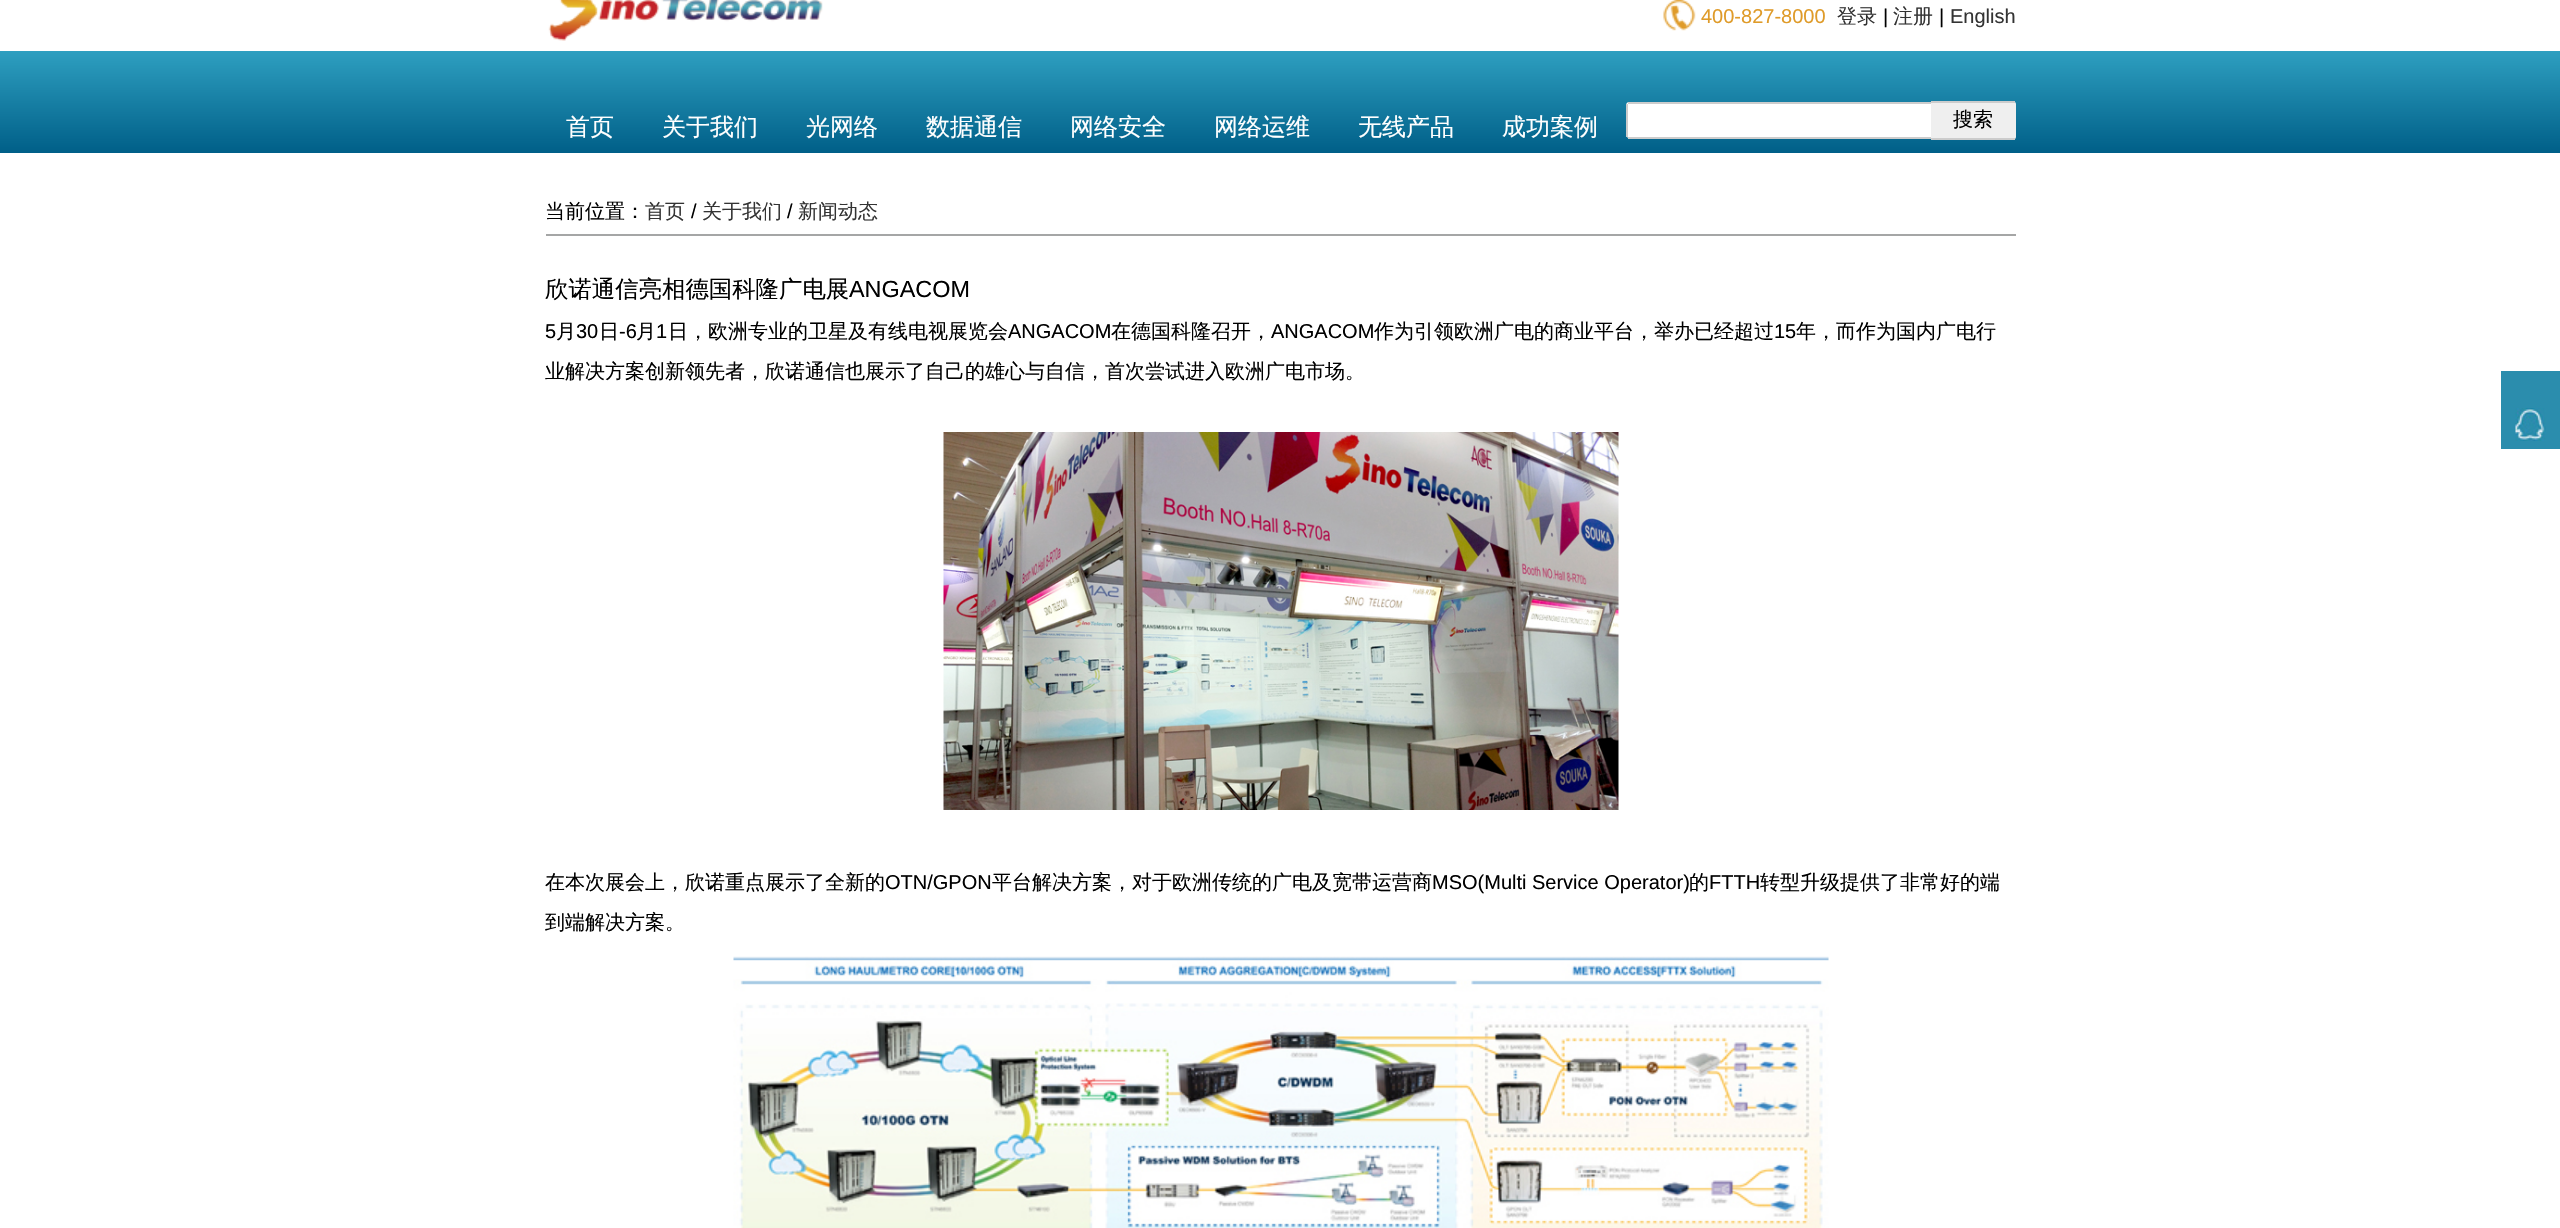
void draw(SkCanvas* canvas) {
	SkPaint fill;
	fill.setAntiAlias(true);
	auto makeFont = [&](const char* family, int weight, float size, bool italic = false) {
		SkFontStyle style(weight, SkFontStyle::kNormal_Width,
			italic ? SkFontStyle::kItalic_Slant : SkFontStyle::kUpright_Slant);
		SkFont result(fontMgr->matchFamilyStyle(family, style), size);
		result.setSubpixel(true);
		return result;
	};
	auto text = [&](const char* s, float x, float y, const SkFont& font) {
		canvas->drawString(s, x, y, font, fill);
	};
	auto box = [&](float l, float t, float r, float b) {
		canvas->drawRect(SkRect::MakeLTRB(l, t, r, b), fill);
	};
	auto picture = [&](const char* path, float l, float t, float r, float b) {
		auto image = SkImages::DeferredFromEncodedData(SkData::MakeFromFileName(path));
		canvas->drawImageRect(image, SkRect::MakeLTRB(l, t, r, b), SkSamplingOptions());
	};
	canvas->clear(0xFFFFFFFF);
	picture("image0.png", 548, 0, 823, 41);
	picture("image1.png", 1663, 0, 1696, 31);
	{
		const SkColor colors[] = {0xFF2E9FC0, 0xFF005F88};
		const float stops[] = {0, 1};
		const SkPoint ends[] = {{0, 51}, {0, 153}};
		fill.setShader(SkGradientShader::MakeLinear(ends, colors, stops, 2, SkTileMode::kClamp));
		fill.setAlpha(255);
	}
	box(0, 51, 2560, 153);
	fill.setShader(nullptr);
	fill.setColor(0xFFFFFFFF);
	canvas->drawPath(SkPathBuilder().moveTo(1629, 102).lineTo(1931, 102).lineTo(1931, 138).lineTo(1629, 138).cubicTo(1627.5f, 138, 1626, 136.5f, 1626, 135).lineTo(1626, 105).cubicTo(1626, 103.5f, 1627.5f, 102, 1629, 102).close().detach(), fill);
	fill.setColor(0xFFCCCCCC);
	box(1628, 102, 1931, 104);
	box(1628, 137, 1931, 139);
	box(1626, 104, 1628, 137);
	fill.setColor(0xFFEFEFEF);
	canvas->drawPath(SkPathBuilder().moveTo(1931, 101).lineTo(2013, 101).cubicTo(2014.5f, 101, 2016, 102.5f, 2016, 104).lineTo(2016, 137).cubicTo(2016, 138.5f, 2014.5f, 140, 2013, 140).lineTo(1931, 140).close().detach(), fill);
	fill.setColor(0xFFCCCCCC);
	box(1931, 101, 2015, 103);
	box(1931, 138, 2015, 140);
	fill.setColor(0xFFA5A6A6);
	box(546, 234, 2016, 236);
	picture("image2.png", 943, 432, 1619, 810);
	picture("image3.png", 733, 956, 1829, 1228);
	fill.setColor(0xFF2B8DAD);
	box(2501, 371, 2560, 449);
	picture("image4.png", 2515, 408, 2546, 441);
	auto font1 = makeFont("Liberation Sans", 400, 20);
	fill.setColor(0xFFDF9B29);
	text("400-827-8000", 1701, 23, font1);
	auto font2 = makeFont("WenQuanYi Zen Hei", 500, 20);
	fill.setColor(0xFF333333);
	text("登录", 1837, 23, font2);
	fill.setColor(0xFF000000);
	text("|", 1883, 23, font1);
	fill.setColor(0xFF333333);
	text("注册", 1893, 23, font2);
	fill.setColor(0xFF000000);
	text("|", 1939, 23, font1);
	fill.setColor(0xFF333333);
	text("English", 1950, 23, font1);
	auto font3 = makeFont("WenQuanYi Zen Hei", 500, 24);
	fill.setColor(0xFFFFFFFF);
	text("首页", 566, 135, font3);
	text("关于我们", 662, 135, font3);
	text("光网络", 806, 135, font3);
	text("数据通信", 926, 135, font3);
	text("网络安全", 1070, 135, font3);
	text("网络运维", 1214, 135, font3);
	text("无线产品", 1358, 135, font3);
	text("成功案例", 1502, 135, font3);
	fill.setColor(0xFF000000);
	text("搜索", 1953, 126, font2);
	text("当前位置：", 545, 218, font2);
	fill.setColor(0xFF333333);
	text("首页", 645, 218, font2);
	fill.setColor(0xFF000000);
	text("/", 691, 218, font1);
	fill.setColor(0xFF333333);
	text("关于我们", 702, 218, font2);
	fill.setColor(0xFF000000);
	text("/", 787, 218, font1);
	fill.setColor(0xFF333333);
	text("新闻动态", 798, 218, font2);
	auto font4 = makeFont("WenQuanYi Zen Hei", 500, 23.4f);
	fill.setColor(0xFF000000);
	text("欣诺通信亮相德国科隆广电展", 545, 297, font4);
	auto font5 = makeFont("Liberation Sans", 400, 23.4f);
	text("ANGACOM", 849, 297, font5);
	text("5", 545, 338, font1);
	text("月", 556, 338, font2);
	text("30", 576, 338, font1);
	text("日", 599, 338, font2);
	text("-6", 619, 338, font1);
	text("月", 636, 338, font2);
	text("1", 656, 338, font1);
	text("日，欧洲专业的卫星及有线电视展览会", 668, 338, font2);
	text("ANGACOM", 1008, 338, font1);
	text("在德国科隆召开，", 1111, 338, font2);
	text("ANGACOM", 1271, 338, font1);
	text("作为引领欧洲广电的商业平台，举办已经超过", 1374, 338, font2);
	text("15", 1774, 338, font1);
	text("年，而作为国内广电行", 1796, 338, font2);
	text("业解决方案创新领先者，欣诺通信也展示了自己的雄心与自信，首次尝试进入欧洲广电市场。", 545, 378, font2);
	text("在本次展会上，欣诺重点展示了全新的", 545, 889, font2);
	text("OTN/GPON", 885, 889, font1);
	text("平台解决方案，对于欧洲传统的广电及宽带运营商", 992, 889, font2);
	text("MSO(Multi Service Operator)", 1432, 889, font1);
	text("的", 1689, 889, font2);
	text("FTTH", 1709, 889, font1);
	text("转型升级提供了非常好的端", 1760, 889, font2);
	text("到端解决方案。", 545, 929, font2);
}
